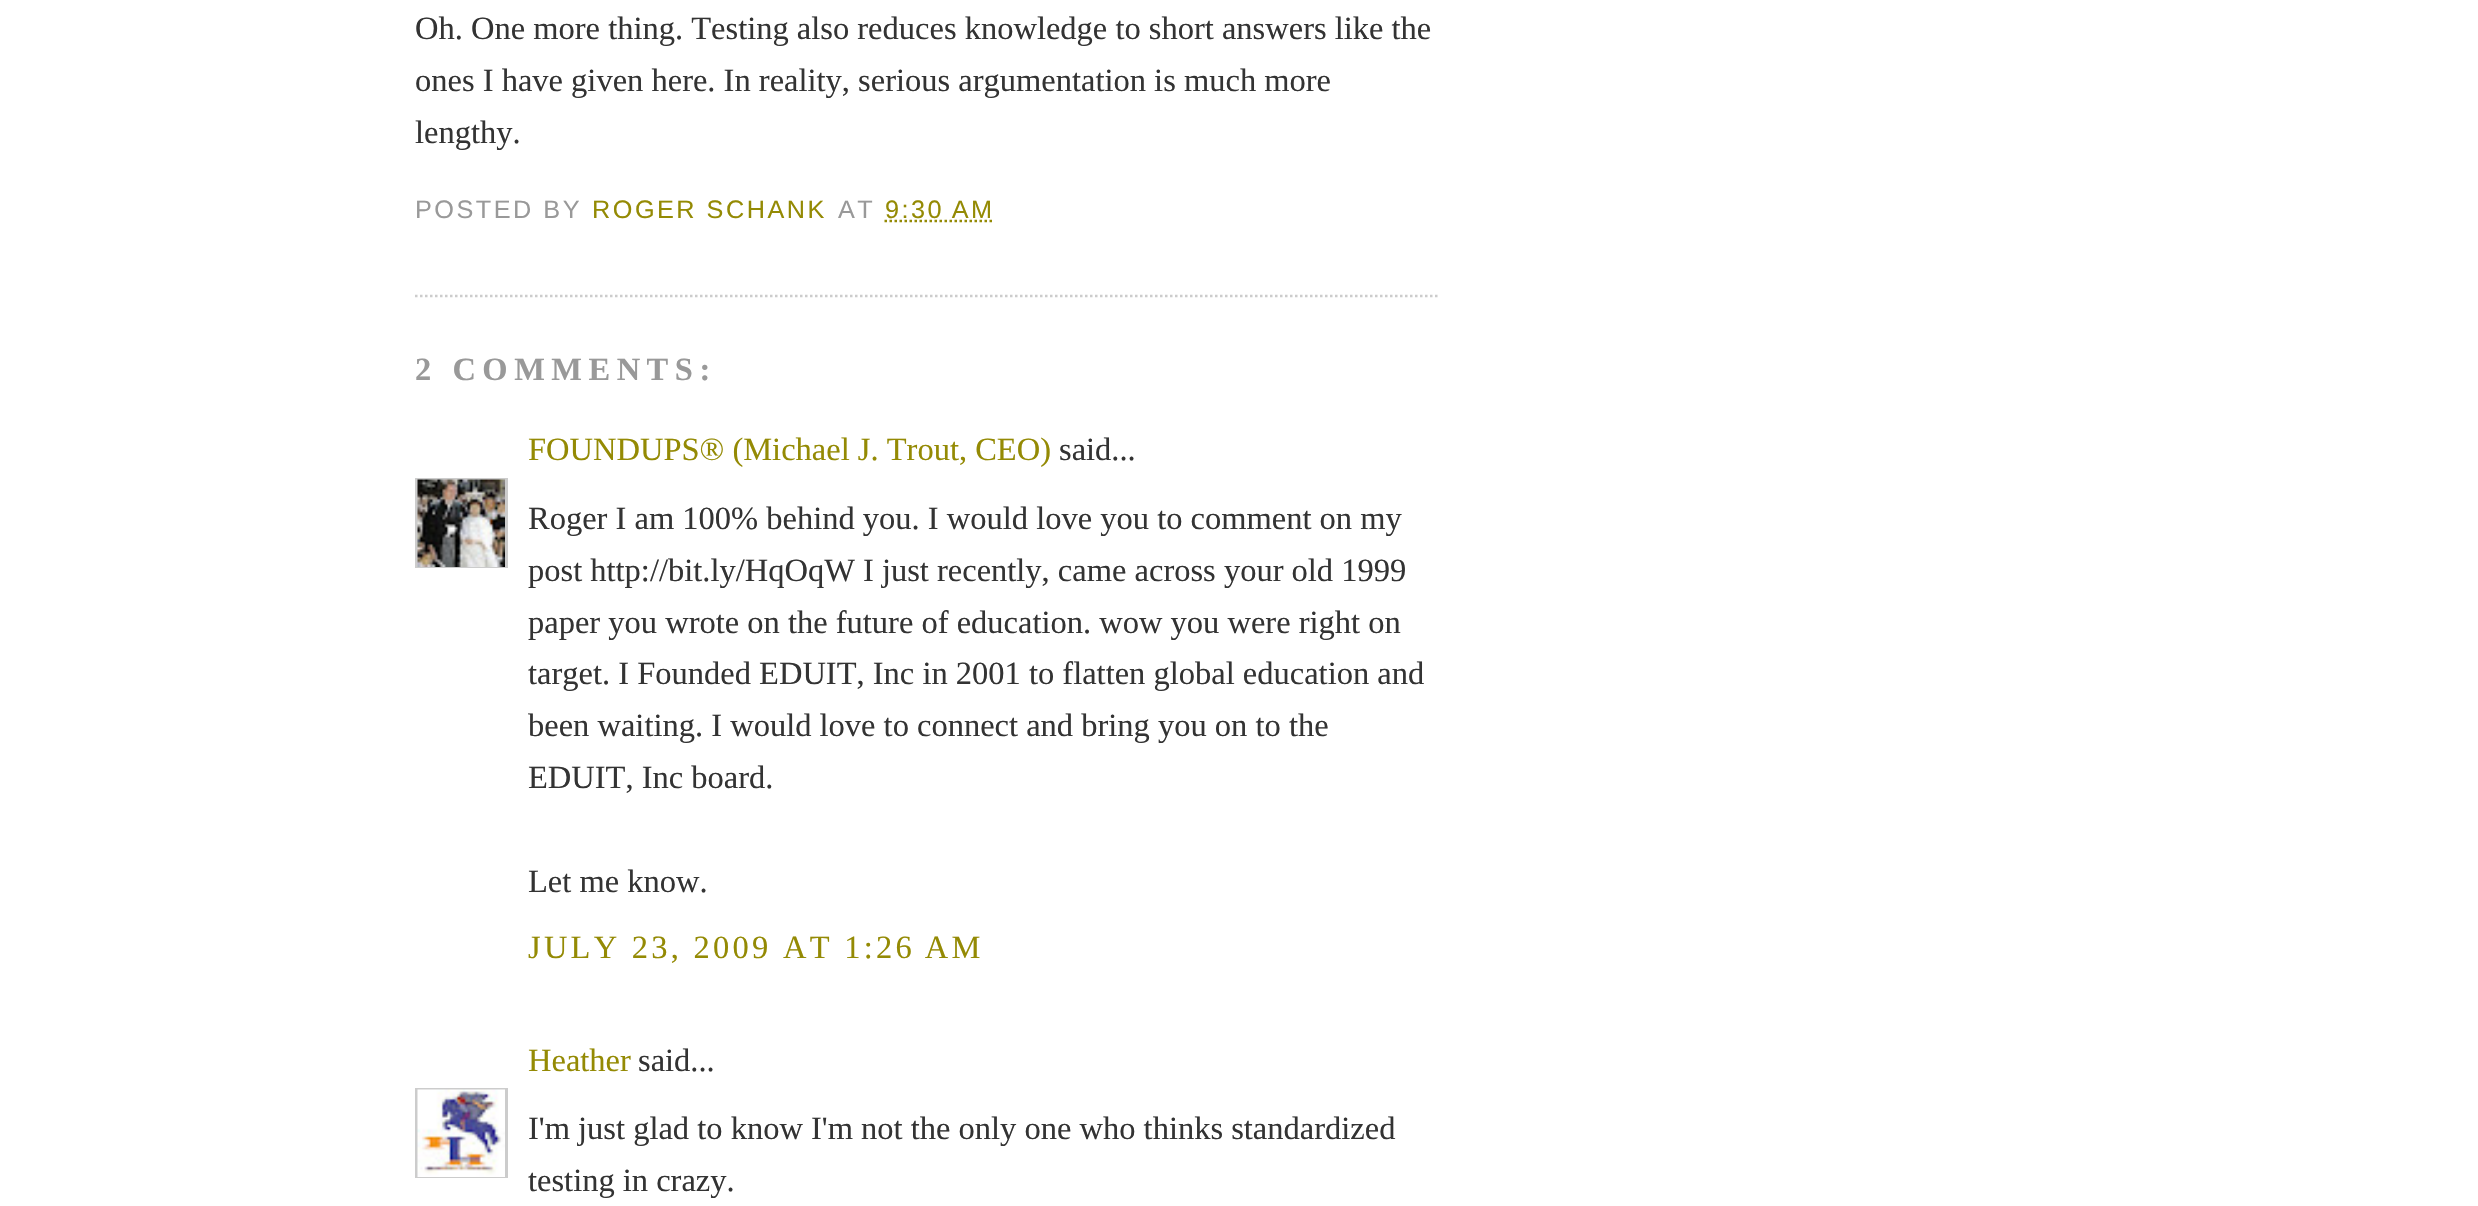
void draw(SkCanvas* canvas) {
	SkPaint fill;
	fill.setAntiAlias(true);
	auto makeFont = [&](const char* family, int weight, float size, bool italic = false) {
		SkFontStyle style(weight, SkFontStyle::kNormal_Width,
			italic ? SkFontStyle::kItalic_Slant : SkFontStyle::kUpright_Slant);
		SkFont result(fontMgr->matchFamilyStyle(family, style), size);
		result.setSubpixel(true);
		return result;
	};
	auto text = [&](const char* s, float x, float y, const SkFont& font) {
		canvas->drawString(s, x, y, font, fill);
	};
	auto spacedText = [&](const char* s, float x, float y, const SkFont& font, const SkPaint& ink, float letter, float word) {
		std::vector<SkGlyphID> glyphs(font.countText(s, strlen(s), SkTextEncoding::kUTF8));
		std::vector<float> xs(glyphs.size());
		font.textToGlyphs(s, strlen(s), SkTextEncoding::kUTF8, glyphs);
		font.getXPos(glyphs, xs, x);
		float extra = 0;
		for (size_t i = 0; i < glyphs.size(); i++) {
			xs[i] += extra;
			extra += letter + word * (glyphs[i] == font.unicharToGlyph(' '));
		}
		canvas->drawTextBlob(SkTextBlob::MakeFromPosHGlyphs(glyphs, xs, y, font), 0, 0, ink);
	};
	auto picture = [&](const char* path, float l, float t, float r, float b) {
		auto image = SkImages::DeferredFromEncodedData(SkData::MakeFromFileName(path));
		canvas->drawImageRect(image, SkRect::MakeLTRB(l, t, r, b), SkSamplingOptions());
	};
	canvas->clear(0xFFFFFFFF);
	fill.setStyle(SkPaint::kStroke_Style);
	fill.setStrokeWidth(2.5f);
	fill.setColor(0xFFCCCCCC);
	fill.setPathEffect(SkDashPathEffect::Make({{2.5f, 2.5f}}, 0));
	canvas->drawPath(SkPathBuilder().moveTo(415, 296).lineTo(1440, 296).detach(), fill);
	fill.setPathEffect(nullptr);
	fill.setColor(0xFF948A04);
	fill.setPathEffect(SkDashPathEffect::Make({{2.5f, 2.5f}}, 0));
	canvas->drawPath(SkPathBuilder().moveTo(884.5f, 221).lineTo(994.5f, 221).detach(), fill);
	fill.setPathEffect(nullptr);
	canvas->save();
	canvas->clipRect(SkRect::MakeLTRB(415, 478, 508, 568));
	fill.setStrokeWidth(3);
	fill.setColor(0xFFCCCCCC);
	canvas->drawRect(SkRect::MakeLTRB(416.5f, 479.5f, 506.5f, 568.5f), fill);
	canvas->restore();
	picture("image0.png", 417, 479, 505, 567);
	canvas->save();
	canvas->clipRect(SkRect::MakeLTRB(415, 1088, 508, 1178));
	canvas->drawRect(SkRect::MakeLTRB(416.5f, 1089.5f, 506.5f, 1178.5f), fill);
	canvas->restore();
	picture("image1.png", 417, 1089, 505, 1177);
	auto font1 = makeFont("Liberation Serif", 400, 32.5f);
	fill.setStyle(SkPaint::kFill_Style);
	fill.setColor(0xFF333333);
	text("Oh. One more thing. Testing also reduces knowledge to short answers like the", 415, 39, font1);
	text("ones I have given here. In reality, serious argumentation is much more", 415, 91, font1);
	text("lengthy.", 415, 143, font1);
	auto font2 = makeFont("Liberation Sans", 400, 25.25f);
	fill.setColor(0xFF999999);
	spacedText("POSTED BY", 415, 218, font2, fill, 2.5f, 0);
	fill.setColor(0xFF948A04);
	spacedText("ROGER SCHANK", 592, 218, font2, fill, 2.5f, 0);
	fill.setColor(0xFF999999);
	spacedText("AT", 838, 218, font2, fill, 2.5f, 0);
	fill.setColor(0xFF948A04);
	spacedText("9:30 AM", 885, 218, font2, fill, 2.5f, 0);
	auto font3 = makeFont("Liberation Serif", 700, 32.5f);
	fill.setColor(0xFF999999);
	spacedText("2 COMMENTS:", 415, 380, font3, fill, 6.5f, 0);
	fill.setColor(0xFF948A04);
	text("FOUNDUPS® (Michael J. Trout, CEO)", 528, 460, font1);
	fill.setColor(0xFF333333);
	text("said...", 1059, 460, font1);
	text("Roger I am 100% behind you. I would love you to comment on my", 528, 529, font1);
	text("post http://bit.ly/HqOqW I just recently, came across your old 1999", 528, 581, font1);
	text("paper you wrote on the future of education. wow you were right on", 528, 633, font1);
	text("target. I Founded EDUIT, Inc in 2001 to flatten global education and", 528, 684, font1);
	text("been waiting. I would love to connect and bring you on to the", 528, 736, font1);
	text("EDUIT, Inc board.", 528, 788, font1);
	text("Let me know.", 528, 892, font1);
	fill.setColor(0xFF948A04);
	spacedText("JULY 23, 2009 AT 1:26 AM", 528, 958, font1, fill, 3.25f, 0);
	text("Heather", 528, 1071, font1);
	fill.setColor(0xFF333333);
	text("said...", 638, 1071, font1);
	text("I'm just glad to know I'm not the only one who thinks standardized", 528, 1139, font1);
	text("testing in crazy.", 528, 1191, font1);
}
